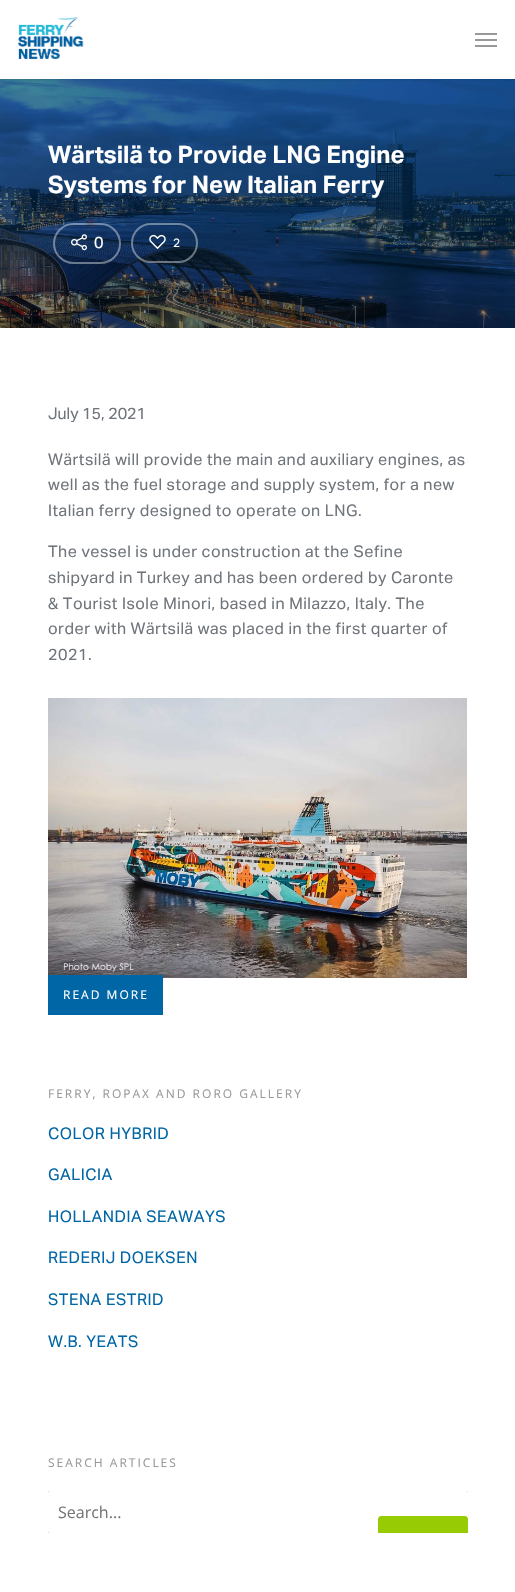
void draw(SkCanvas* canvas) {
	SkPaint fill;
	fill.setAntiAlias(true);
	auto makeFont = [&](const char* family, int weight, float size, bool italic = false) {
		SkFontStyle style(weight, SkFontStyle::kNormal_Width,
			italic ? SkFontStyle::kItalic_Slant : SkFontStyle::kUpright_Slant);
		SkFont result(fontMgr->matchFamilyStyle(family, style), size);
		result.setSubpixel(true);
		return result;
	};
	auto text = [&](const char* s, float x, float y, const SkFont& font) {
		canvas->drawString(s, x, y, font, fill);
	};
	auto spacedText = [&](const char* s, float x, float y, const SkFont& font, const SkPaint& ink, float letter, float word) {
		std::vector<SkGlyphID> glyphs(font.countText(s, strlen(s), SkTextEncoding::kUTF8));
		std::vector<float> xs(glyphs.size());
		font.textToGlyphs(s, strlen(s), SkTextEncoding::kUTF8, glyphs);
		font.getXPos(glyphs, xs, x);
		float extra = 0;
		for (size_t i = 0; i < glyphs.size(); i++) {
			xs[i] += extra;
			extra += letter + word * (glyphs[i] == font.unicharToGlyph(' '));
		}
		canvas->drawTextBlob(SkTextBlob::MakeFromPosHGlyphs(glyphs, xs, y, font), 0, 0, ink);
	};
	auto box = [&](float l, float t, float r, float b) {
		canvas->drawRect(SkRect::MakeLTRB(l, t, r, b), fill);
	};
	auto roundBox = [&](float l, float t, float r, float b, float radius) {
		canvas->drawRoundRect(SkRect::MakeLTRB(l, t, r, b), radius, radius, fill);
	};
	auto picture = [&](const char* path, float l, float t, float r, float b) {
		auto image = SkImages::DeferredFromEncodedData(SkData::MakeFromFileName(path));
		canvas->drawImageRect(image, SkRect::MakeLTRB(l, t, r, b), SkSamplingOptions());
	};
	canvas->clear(0xFFFFFFFF);
	picture("image1.png", 0, 79, 515, 328);
	fill.setColor(0x38000000);
	fill.setMaskFilter(SkMaskFilter::MakeBlur(kNormal_SkBlurStyle, 1.5f));
	canvas->drawRect(SkRect::MakeLTRB(0, 0, 515, 79), fill);
	fill.setMaskFilter(nullptr);
	fill.setColor(0xFFFFFFFF);
	box(0, 0, 515, 79);
	picture("image0.png", 18, 17, 84, 59);
	fill.setColor(0xFF999999);
	box(475, 33, 497, 35);
	box(475, 45, 497, 47);
	box(475, 39, 497, 41);
	fill.setStyle(SkPaint::kStroke_Style);
	fill.setStrokeWidth(2);
	fill.setColor(0x66FFFFFF);
	canvas->drawRoundRect(SkRect::MakeLTRB(54, 224, 120, 263), 19.5f, 19.5f, fill);
	picture("image2.png", 71, 234, 87, 251);
	canvas->drawRoundRect(SkRect::MakeLTRB(132, 224, 197, 262), 19, 19, fill);
	picture("image3.png", 149, 234, 166, 250);
	picture("image4.png", 48, 698, 467, 978);
	fill.setStyle(SkPaint::kFill_Style);
	fill.setColor(0xFF0066A6);
	box(48, 975, 163, 1015);
	canvas->save();
	canvas->clipRect(SkRect::MakeLTRB(48, 1491, 468, 1533));
	fill.setStyle(SkPaint::kStroke_Style);
	fill.setColor(0xFFD9D9D9);
	canvas->drawRoundRect(SkRect::MakeLTRB(47, 1490, 469, 1534), 4, 4, fill);
	canvas->restore();
	fill.setStyle(SkPaint::kFill_Style);
	fill.setColor(0xFFFFFFFF);
	roundBox(48, 1491, 468, 1533, 3);
	fill.setColor(0xFF97CC04);
	canvas->drawPath(SkPathBuilder().moveTo(381, 1516).lineTo(465, 1516).cubicTo(466.5f, 1516, 468, 1517.5f, 468, 1519).lineTo(468, 1533).lineTo(378, 1533).lineTo(378, 1519).cubicTo(378, 1517.5f, 379.5f, 1516, 381, 1516).close().detach(), fill);
	auto font1 = makeFont("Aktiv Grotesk", 700, 24);
	fill.setColor(0xFFFFFFFF);
	text("Wärtsilä to Provide LNG Engine", 48, 163, font1);
	text("Systems for New Italian Ferry", 48, 193, font1);
	auto font2 = makeFont("Aktiv Grotesk", 400, 16);
	text("0", 94, 248, font2);
	auto font3 = makeFont("Aktiv Grotesk", 400, 12);
	text("2", 173, 247, font3);
	fill.setColor(0xFF6F757B);
	text("July 15, 2021", 48, 419, font2);
	spacedText("Wärtsilä will provide the main and auxiliary engines, as", 48, 465, font2, fill, 0.5f, 0);
	spacedText("well as the fuel storage and supply system, for a new", 48, 490, font2, fill, 0.5f, 0);
	spacedText("Italian ferry designed to operate on LNG.", 48, 516, font2, fill, 0.5f, 0);
	spacedText("The vessel is under construction at the Sefine", 48, 557, font2, fill, 0.5f, 0);
	spacedText("shipyard in Turkey and has been ordered by Caronte", 48, 583, font2, fill, 0.5f, 0);
	spacedText("& Tourist Isole Minori, based in Milazzo, Italy. The", 48, 609, font2, fill, 0.5f, 0);
	spacedText("order with Wärtsilä was placed in the first quarter of", 48, 634, font2, fill, 0.5f, 0);
	spacedText("2021.", 48, 660, font2, fill, 0.5f, 0);
	auto font4 = makeFont("Open Sans", 400, 12);
	fill.setColor(0xFFFFFFFF);
	spacedText("READ MORE", 63, 999, font4, fill, 2, 0);
	fill.setColor(0xFF999999);
	spacedText("FERRY, ROPAX AND RORO GALLERY", 48, 1098, font4, fill, 2, 0);
	fill.setColor(0xFF0066A6);
	spacedText("COLOR HYBRID", 48, 1139, font2, fill, 0.5f, 0);
	spacedText("GALICIA", 48, 1180, font2, fill, 0.5f, 0);
	spacedText("HOLLANDIA SEAWAYS", 48, 1222, font2, fill, 0.5f, 0);
	spacedText("REDERIJ DOEKSEN", 48, 1263, font2, fill, 0.5f, 0);
	spacedText("STENA ESTRID", 48, 1305, font2, fill, 0.5f, 0);
	spacedText("W.B. YEATS", 48, 1347, font2, fill, 0.5f, 0);
	fill.setColor(0xFF999999);
	spacedText("SEARCH ARTICLES", 48, 1467, font4, fill, 2, 0);
	auto font5 = makeFont("Open Sans", 400, 16);
	fill.setColor(0xFF757575);
	text("Search...", 58, 1518, font5);
}
